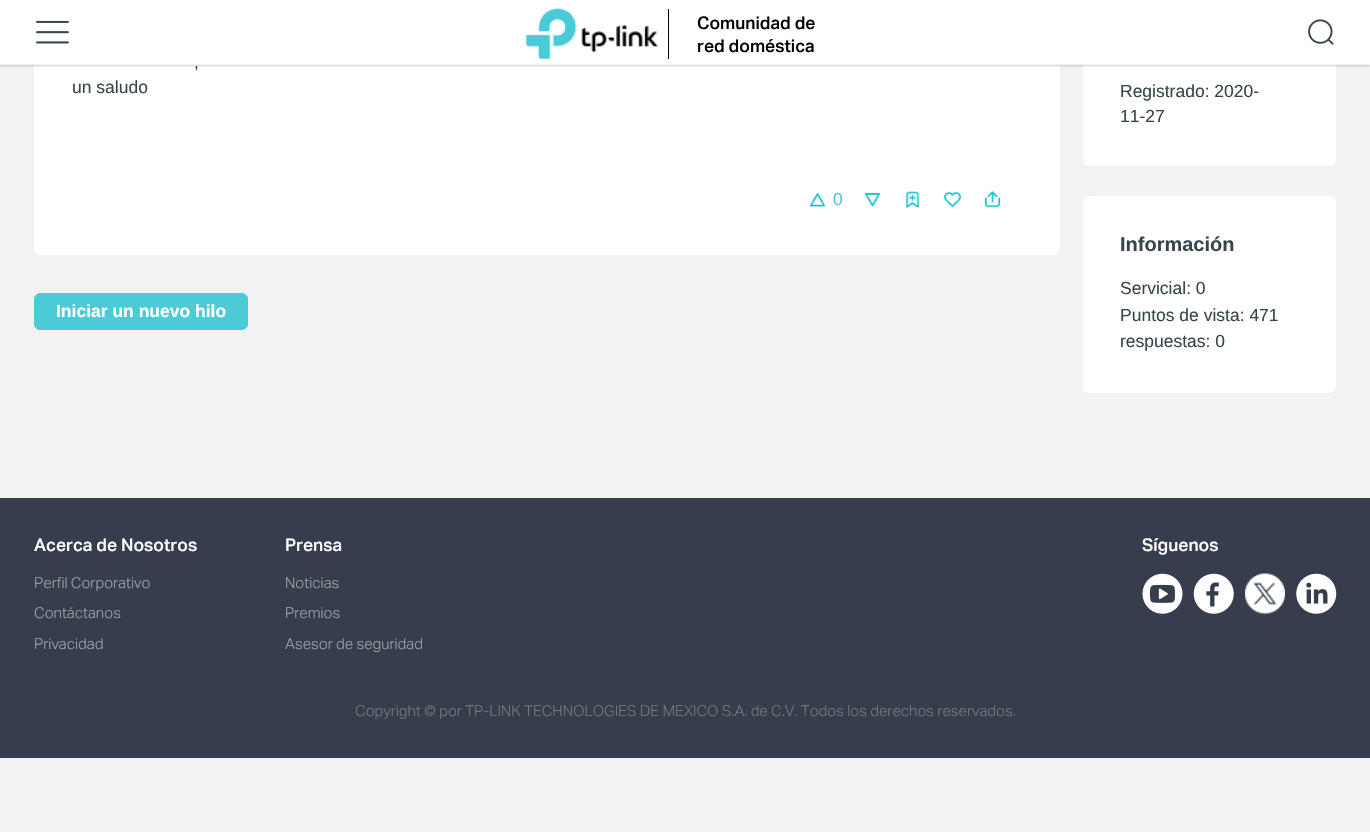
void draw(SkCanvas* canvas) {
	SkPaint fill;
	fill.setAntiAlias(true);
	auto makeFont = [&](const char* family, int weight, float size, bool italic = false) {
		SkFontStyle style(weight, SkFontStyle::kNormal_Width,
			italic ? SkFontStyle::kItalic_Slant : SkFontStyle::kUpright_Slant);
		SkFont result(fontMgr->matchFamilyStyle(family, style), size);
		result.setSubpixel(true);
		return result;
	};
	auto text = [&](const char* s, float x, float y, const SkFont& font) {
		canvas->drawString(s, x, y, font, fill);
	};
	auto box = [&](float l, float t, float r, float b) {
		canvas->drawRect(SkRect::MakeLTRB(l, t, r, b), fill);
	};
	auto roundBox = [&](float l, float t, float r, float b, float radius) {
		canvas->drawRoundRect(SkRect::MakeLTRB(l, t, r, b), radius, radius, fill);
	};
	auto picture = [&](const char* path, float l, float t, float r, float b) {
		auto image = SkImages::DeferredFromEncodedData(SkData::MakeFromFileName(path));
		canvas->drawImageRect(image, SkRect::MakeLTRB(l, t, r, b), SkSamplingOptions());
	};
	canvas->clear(0xFFF2F2F2);
	fill.setColor(0xFFFFFFFF);
	roundBox(34, -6, 1060, 255, 6);
	roundBox(1083, -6, 1336, 166, 6);
	box(0, 0, 1370, 65);
	picture("image0.png", 36, 20, 69, 44);
	picture("image1.png", 526, 8, 658, 59);
	fill.setColor(0xFF000000);
	box(668, 9, 669, 59);
	picture("image2.png", 1308, 19, 1334, 45);
	fill.setColor(0x4D212121);
	fill.setMaskFilter(SkMaskFilter::MakeBlur(kNormal_SkBlurStyle, 1));
	canvas->drawRect(SkRect::MakeLTRB(0, 65, 1370, 66), fill);
	fill.setMaskFilter(nullptr);
	picture("image3.png", 810, 193, 825, 207);
	picture("image4.png", 865, 193, 880, 207);
	picture("image5.png", 905, 191, 920, 208);
	picture("image6.png", 943, 191, 962, 208);
	picture("image7.png", 984, 190, 1001, 208);
	fill.setColor(0xFF4ACBD6);
	canvas->drawRoundRect(SkRect::MakeLTRB(34.5f, 293.5f, 247.5f, 329.5f), 5.5f, 5.5f, fill);
	fill.setStyle(SkPaint::kStroke_Style);
	fill.setStrokeWidth(1);
	canvas->drawRoundRect(SkRect::MakeLTRB(34.5f, 293.5f, 247.5f, 329.5f), 5.5f, 5.5f, fill);
	fill.setStyle(SkPaint::kFill_Style);
	fill.setColor(0xFFFFFFFF);
	roundBox(1083, 196, 1336, 393, 6);
	fill.setColor(0xFF363E4D);
	box(0, 498, 1370, 758);
	picture("image8.png", 1142, 573, 1183, 614);
	picture("image9.png", 1193, 573, 1234, 614);
	picture("image10.png", 1245, 573, 1285, 614);
	picture("image11.png", 1296, 573, 1337, 614);
	auto font1 = makeFont("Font", 500, 17.5f);
	fill.setColor(0xFF000000);
	text("Comunidad de", 697, 29, font1);
	text("red doméstica", 697, 52, font1);
	auto font2 = makeFont("Liberation Sans", 400, 17.5f);
	fill.setColor(0xFF36444B);
	text(",", 194, 68, font2);
	text("un saludo", 72, 93, font2);
	fill.setColor(0xFF4ACBD6);
	text("0", 833, 205, font2);
	auto font3 = makeFont("Liberation Sans", 700, 17.5f);
	fill.setColor(0xFFFFFFFF);
	text("Iniciar un nuevo hilo", 56, 317, font3);
	fill.setColor(0xFF36444B);
	text("Registrado: 2020-", 1120, 97, font2);
	text("11-27", 1120, 122, font2);
	auto font4 = makeFont("Liberation Sans", 700, 20);
	text("Información", 1120, 251, font4);
	text("Servicial: 0", 1120, 294, font2);
	text("Puntos de vista: 471", 1120, 321, font2);
	text("respuestas: 0", 1120, 347, font2);
	fill.setColor(0xFFFFFFFF);
	text("Acerca de Nosotros", 34, 551, font1);
	auto font5 = makeFont("Font", 300, 15);
	fill.setColor(0xFFA0A2A8);
	text("Perfil Corporativo", 34, 588, font5);
	text("Contáctanos", 34, 618, font5);
	text("Privacidad", 34, 649, font5);
	fill.setColor(0xFFFFFFFF);
	text("Prensa", 285, 551, font1);
	fill.setColor(0xFFA0A2A8);
	text("Noticias", 285, 588, font5);
	text("Premios", 285, 618, font5);
	text("Asesor de seguridad", 285, 649, font5);
	fill.setColor(0xFFFFFFFF);
	text("Síguenos", 1142, 551, font1);
	fill.setColor(0xFF787878);
	text("Copyright © por TP-LINK TECHNOLOGIES DE MEXICO S.A. de C.V. Todos los derechos reservados.", 355, 716, font5);
}
